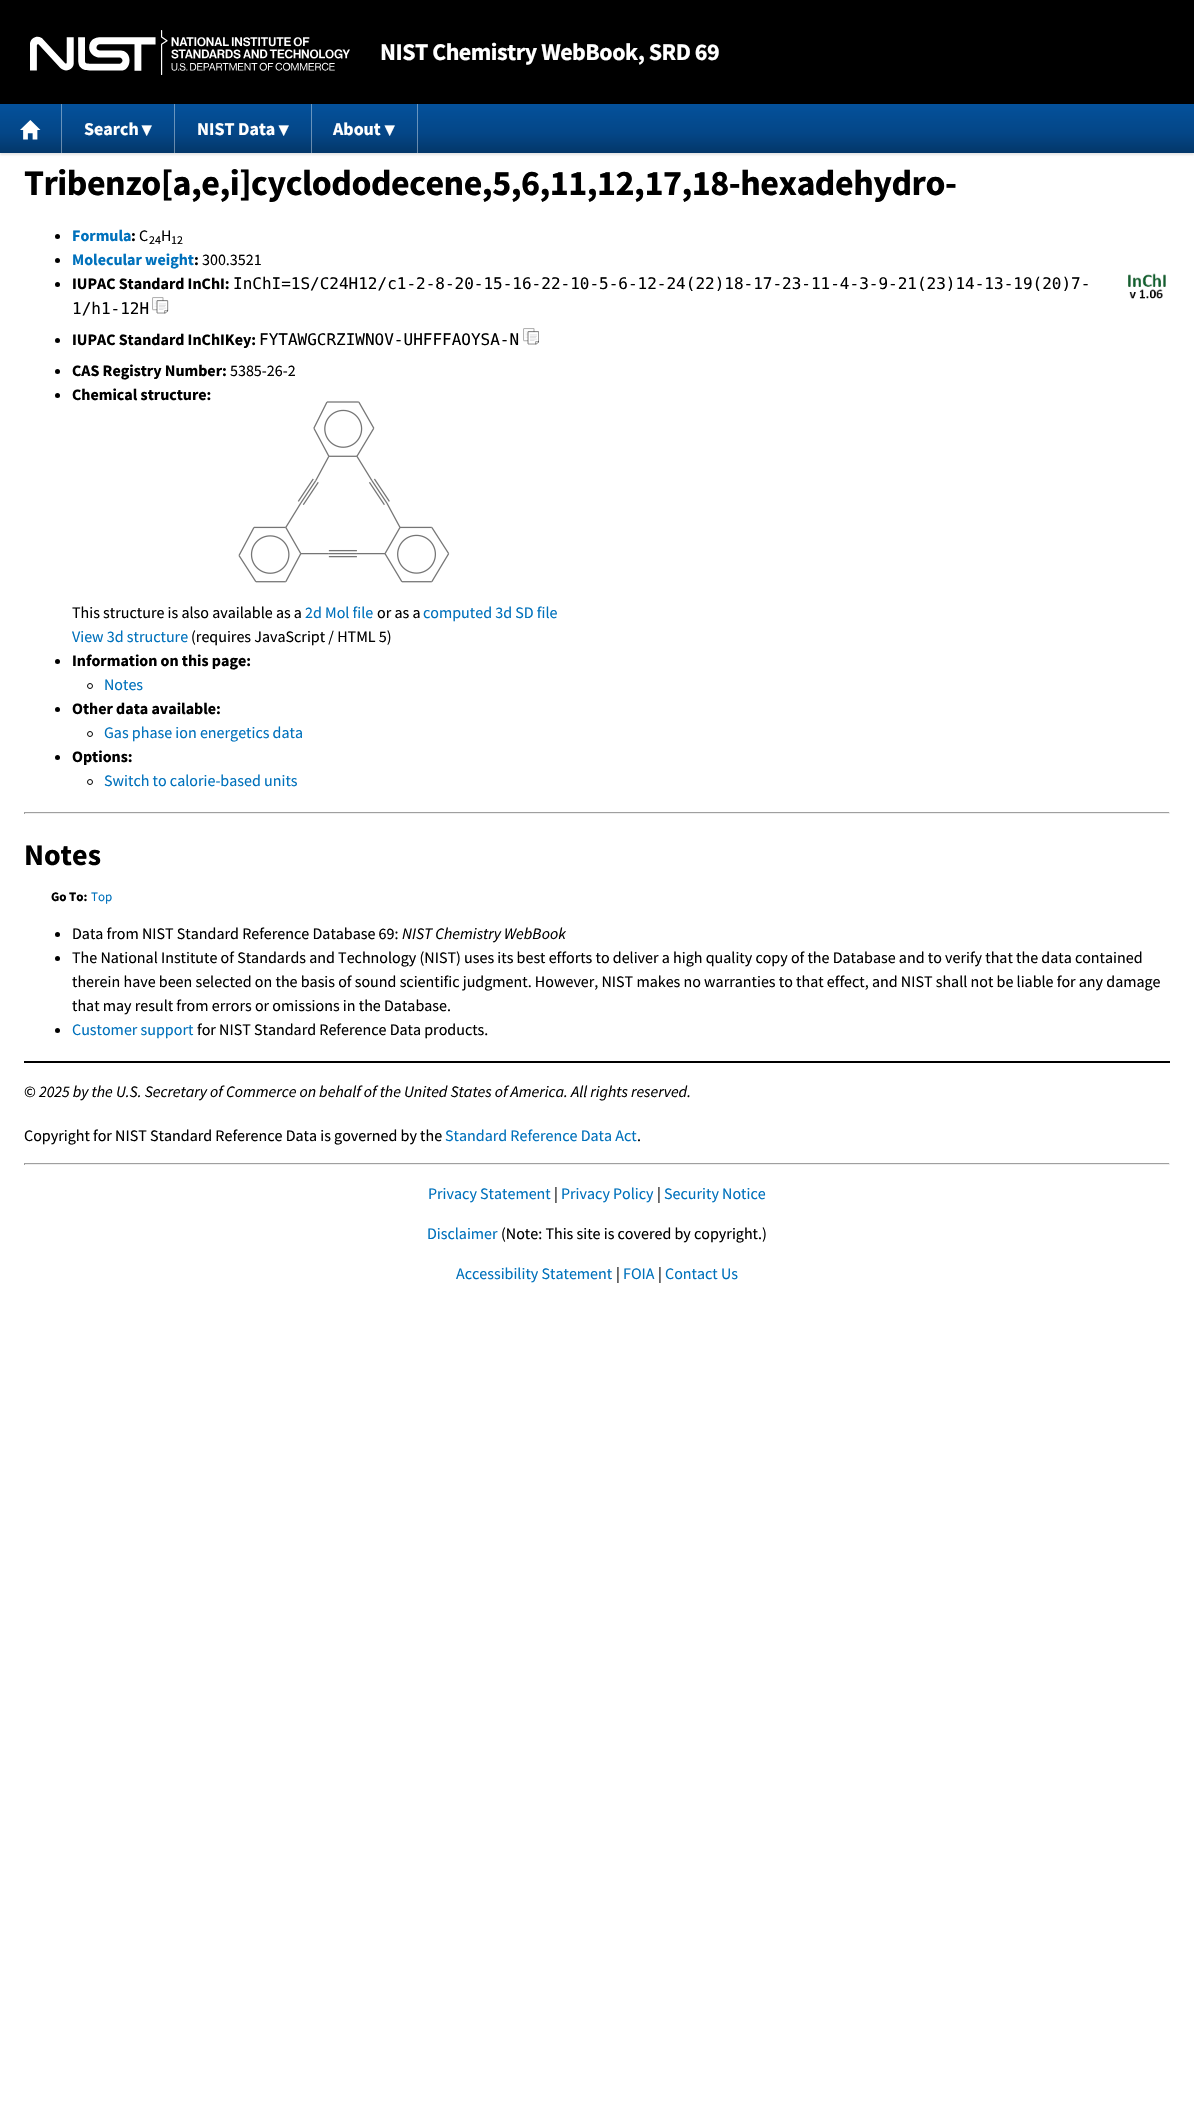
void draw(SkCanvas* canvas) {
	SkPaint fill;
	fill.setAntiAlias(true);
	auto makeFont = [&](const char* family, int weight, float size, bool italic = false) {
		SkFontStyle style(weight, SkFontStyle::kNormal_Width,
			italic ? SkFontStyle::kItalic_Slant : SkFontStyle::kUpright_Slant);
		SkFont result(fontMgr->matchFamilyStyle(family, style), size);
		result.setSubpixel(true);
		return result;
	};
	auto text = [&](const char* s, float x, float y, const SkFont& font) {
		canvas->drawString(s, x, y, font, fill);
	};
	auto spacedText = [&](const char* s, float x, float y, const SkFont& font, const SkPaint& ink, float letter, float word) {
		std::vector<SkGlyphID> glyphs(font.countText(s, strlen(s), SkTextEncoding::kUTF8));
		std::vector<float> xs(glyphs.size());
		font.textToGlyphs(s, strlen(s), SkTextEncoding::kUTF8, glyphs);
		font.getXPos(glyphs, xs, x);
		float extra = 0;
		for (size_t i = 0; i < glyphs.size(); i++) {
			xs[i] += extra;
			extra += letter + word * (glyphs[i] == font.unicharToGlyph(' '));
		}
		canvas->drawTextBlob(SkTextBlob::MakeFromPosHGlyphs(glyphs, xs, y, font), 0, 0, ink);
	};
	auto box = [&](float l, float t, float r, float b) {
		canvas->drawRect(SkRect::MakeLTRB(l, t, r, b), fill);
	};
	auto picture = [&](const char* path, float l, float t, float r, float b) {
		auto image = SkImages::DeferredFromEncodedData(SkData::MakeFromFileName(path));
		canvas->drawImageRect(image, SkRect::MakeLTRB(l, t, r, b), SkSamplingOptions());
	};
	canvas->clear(0xFFFFFFFF);
	fill.setColor(0x1A000000);
	fill.setMaskFilter(SkMaskFilter::MakeBlur(kNormal_SkBlurStyle, 1));
	canvas->drawRect(SkRect::MakeLTRB(0, 106, 1194, 155), fill);
	fill.setMaskFilter(nullptr);
	fill.setColor(0xFF000000);
	box(0, 0, 1194, 104);
	picture("image0.png", 30, 30, 350, 75);
	{
		const SkColor colors[] = {0xFF04519B, 0xFF044687, 0xFF033769};
		const float stops[] = {0, 0.6f, 1};
		const SkPoint ends[] = {{597, 104}, {597, 153}};
		fill.setShader(SkGradientShader::MakeLinear(ends, colors, stops, 3, SkTileMode::kClamp));
		fill.setAlpha(255);
	}
	box(0, 104, 1194, 153);
	{
		const SkColor colors[] = {0xFF6897C3, 0xFF6890B7, 0xFF6887A5};
		const float stops[] = {0, 0.6f, 1};
		const SkPoint ends[] = {{597, 104}, {597, 153}};
		fill.setShader(SkGradientShader::MakeLinear(ends, colors, stops, 3, SkTileMode::kClamp));
		fill.setAlpha(255);
	}
	box(417, 104, 418, 153);
	box(311, 104, 312, 153);
	box(174, 104, 175, 153);
	box(61, 104, 62, 153);
	picture("image1.png", 20, 120, 41, 140);
	fill.setShader(nullptr);
	fill.setColor(0xFF000000);
	canvas->drawCircle(57.5f, 236.5f, 2.5f, fill);
	canvas->drawCircle(57.5f, 260.5f, 2.5f, fill);
	canvas->drawCircle(57.5f, 284.5f, 2.5f, fill);
	picture("image2.png", 152, 297, 169, 314);
	picture("image3.png", 1128, 273, 1166, 299);
	canvas->drawCircle(57.5f, 340.5f, 2.5f, fill);
	picture("image4.png", 523, 328, 539, 345);
	canvas->drawCircle(57.5f, 371.5f, 2.5f, fill);
	canvas->drawCircle(57.5f, 395.5f, 2.5f, fill);
	picture("image5.png", 238, 401, 450, 583);
	canvas->drawCircle(57.5f, 661.5f, 2.5f, fill);
	fill.setStyle(SkPaint::kStroke_Style);
	fill.setStrokeWidth(1);
	canvas->drawCircle(90, 686, 2.5f, fill);
	fill.setStyle(SkPaint::kFill_Style);
	canvas->drawCircle(57.5f, 709.5f, 2.5f, fill);
	fill.setStyle(SkPaint::kStroke_Style);
	canvas->drawCircle(90, 734, 2.5f, fill);
	fill.setStyle(SkPaint::kFill_Style);
	canvas->drawCircle(57.5f, 757.5f, 2.5f, fill);
	fill.setStyle(SkPaint::kStroke_Style);
	canvas->drawCircle(90, 782, 2.5f, fill);
	fill.setStyle(SkPaint::kFill_Style);
	fill.setColor(0xFF9F9F9F);
	box(24, 812, 1170, 813);
	fill.setColor(0xFFEEEEEE);
	box(1169, 812, 1170, 814);
	box(24, 813, 1170, 814);
	fill.setColor(0xFF9F9F9F);
	box(24, 812, 25, 814);
	fill.setColor(0xFF000000);
	canvas->drawCircle(57.5f, 934.5f, 2.5f, fill);
	canvas->drawCircle(57.5f, 958.5f, 2.5f, fill);
	canvas->drawCircle(57.5f, 1030.5f, 2.5f, fill);
	box(24, 1061, 1170, 1063);
	fill.setColor(0xFF9F9F9F);
	box(24, 1163, 1170, 1164);
	fill.setColor(0xFFEEEEEE);
	box(1169, 1163, 1170, 1165);
	box(24, 1164, 1170, 1165);
	fill.setColor(0xFF9F9F9F);
	box(24, 1163, 25, 1165);
	auto font1 = makeFont("Source Sans Pro", 700, 24);
	fill.setColor(0xFFFFFFFF);
	spacedText("NIST Chemistry WebBook, SRD 69", 380, 60, font1, fill, -0.5f, 0);
	auto font2 = makeFont("Source Sans Pro", 700, 18);
	text("Search", 84, 135, font2);
	auto font3 = makeFont("Source Sans Pro", 700, 13);
	text("▼", 141, 135, font3);
	text("NIST Data", 197, 135, font2);
	text("▼", 278, 135, font3);
	text("About", 333, 135, font2);
	text("▼", 384, 135, font3);
	auto font4 = makeFont("Source Sans Pro", 700, 36);
	fill.setColor(0xFF000000);
	spacedText("Tribenzo[a,e,i]cyclododecene,5,6,11,12,17,18-hexadehydro-", 24, 195, font4, fill, -0.5f, 0);
	auto font5 = makeFont("Source Sans Pro", 700, 16);
	fill.setColor(0xFF0071BC);
	text("Formula", 72, 241, font5);
	fill.setColor(0xFF000000);
	text(":", 131, 241, font5);
	auto font6 = makeFont("Source Sans Pro", 400, 16);
	text("C", 139, 241, font6);
	auto font7 = makeFont("Source Sans Pro", 400, 12);
	text("24", 149, 244, font7);
	text("H", 161, 241, font6);
	text("12", 171, 244, font7);
	fill.setColor(0xFF0071BC);
	text("Molecular weight", 72, 265, font5);
	fill.setColor(0xFF000000);
	text(":", 194, 265, font5);
	text("300.3521", 202, 265, font6);
	text("IUPAC Standard InChI:", 72, 289, font5);
	auto font8 = makeFont("DejaVu Sans Mono", 400, 16);
	text("InChI=1S/C24H12/c1-2-8-20-15-16-22-10-5-6-12-24(22)18-17-23-11-4-3-9-21(23)14-13-19(20)7-", 233, 289, font8);
	text("1/h1-12H", 72, 314, font8);
	text("IUPAC Standard InChIKey:", 72, 345, font5);
	text("FYTAWGCRZIWNOV-UHFFFAOYSA-N", 259, 345, font8);
	text("CAS Registry Number:", 72, 376, font5);
	text("5385-26-2", 230, 376, font6);
	text("Chemical structure:", 72, 400, font5);
	text("This structure is also available as a", 72, 618, font6);
	fill.setColor(0xFF0071BC);
	text("2d Mol file", 305, 618, font6);
	fill.setColor(0xFF000000);
	text("or as a", 377, 618, font6);
	fill.setColor(0xFF0071BC);
	text("computed 3d SD file", 423, 618, font6);
	text("View 3d structure", 72, 642, font6);
	fill.setColor(0xFF000000);
	text("(requires JavaScript / HTML 5)", 191, 642, font6);
	text("Information on this page:", 72, 666, font5);
	fill.setColor(0xFF0071BC);
	text("Notes", 104, 690, font6);
	fill.setColor(0xFF000000);
	text("Other data available:", 72, 714, font5);
	fill.setColor(0xFF0071BC);
	text("Gas phase ion energetics data", 104, 738, font6);
	fill.setColor(0xFF000000);
	text("Options:", 72, 762, font5);
	fill.setColor(0xFF0071BC);
	text("Switch to calorie-based units", 104, 786, font6);
	auto font9 = makeFont("Source Sans Pro", 700, 30);
	fill.setColor(0xFF000000);
	text("Notes", 24, 865, font9);
	text("Go To:", 51, 901, font3);
	auto font10 = makeFont("Source Sans Pro", 400, 13);
	fill.setColor(0xFF0071BC);
	text("Top", 91, 901, font10);
	fill.setColor(0xFF000000);
	text("Data from NIST Standard Reference Database 69:", 72, 939, font6);
	auto font11 = makeFont("Source Sans Pro", 400, 16, true);
	text("NIST Chemistry WebBook", 402, 939, font11);
	text("The National Institute of Standards and Technology (NIST) uses its best efforts to deliver a high quality copy of the Database and to verify that the data contained", 72, 963, font6);
	text("therein have been selected on the basis of sound scientific judgment. However, NIST makes no warranties to that effect, and NIST shall not be liable for any damage", 72, 987, font6);
	text("that may result from errors or omissions in the Database.", 72, 1011, font6);
	fill.setColor(0xFF0071BC);
	text("Customer support", 72, 1035, font6);
	fill.setColor(0xFF000000);
	text("for NIST Standard Reference Data products.", 197, 1035, font6);
	text("©", 24, 1097, font6);
	text("2025 by the U.S. Secretary of Commerce on behalf of the United States of America. All rights reserved.", 39, 1097, font11);
	text("Copyright for NIST Standard Reference Data is governed by the", 24, 1141, font6);
	fill.setColor(0xFF0071BC);
	text("Standard Reference Data Act", 445, 1141, font6);
	fill.setColor(0xFF000000);
	text(".", 637, 1141, font6);
	fill.setColor(0xFF0071BC);
	text("Privacy Statement", 428, 1199, font6);
	fill.setColor(0xFF000000);
	text("|", 554, 1199, font6);
	fill.setColor(0xFF0071BC);
	text("Privacy Policy", 561, 1199, font6);
	fill.setColor(0xFF000000);
	text("|", 657, 1199, font6);
	fill.setColor(0xFF0071BC);
	text("Security Notice", 664, 1199, font6);
	text("Disclaimer", 427, 1239, font6);
	fill.setColor(0xFF000000);
	text("(Note: This site is covered by copyright.)", 501, 1239, font6);
	fill.setColor(0xFF0071BC);
	text("Accessibility Statement", 456, 1279, font6);
	fill.setColor(0xFF000000);
	text("|", 616, 1279, font6);
	fill.setColor(0xFF0071BC);
	text("FOIA", 623, 1279, font6);
	fill.setColor(0xFF000000);
	text("|", 658, 1279, font6);
	fill.setColor(0xFF0071BC);
	text("Contact Us", 665, 1279, font6);
}
